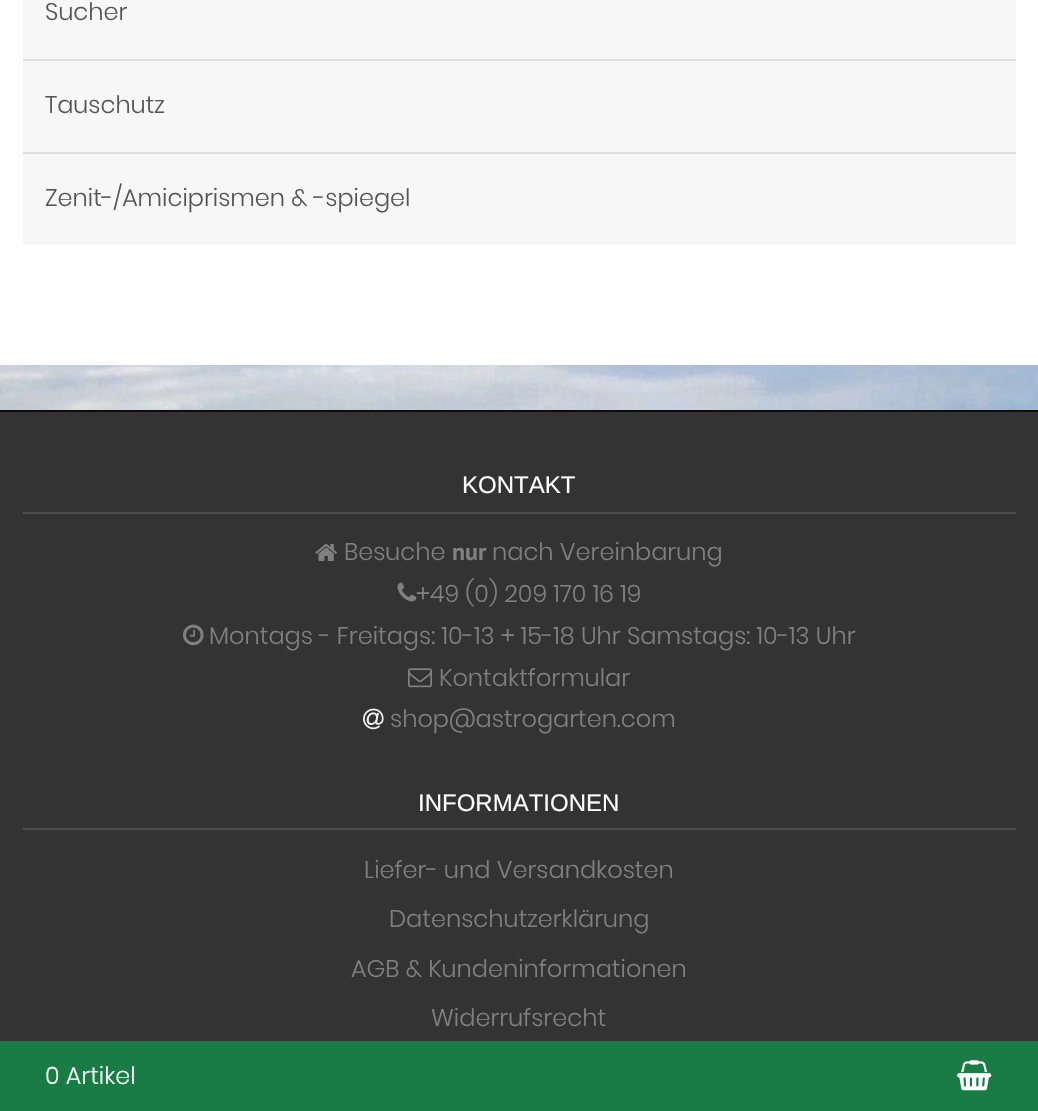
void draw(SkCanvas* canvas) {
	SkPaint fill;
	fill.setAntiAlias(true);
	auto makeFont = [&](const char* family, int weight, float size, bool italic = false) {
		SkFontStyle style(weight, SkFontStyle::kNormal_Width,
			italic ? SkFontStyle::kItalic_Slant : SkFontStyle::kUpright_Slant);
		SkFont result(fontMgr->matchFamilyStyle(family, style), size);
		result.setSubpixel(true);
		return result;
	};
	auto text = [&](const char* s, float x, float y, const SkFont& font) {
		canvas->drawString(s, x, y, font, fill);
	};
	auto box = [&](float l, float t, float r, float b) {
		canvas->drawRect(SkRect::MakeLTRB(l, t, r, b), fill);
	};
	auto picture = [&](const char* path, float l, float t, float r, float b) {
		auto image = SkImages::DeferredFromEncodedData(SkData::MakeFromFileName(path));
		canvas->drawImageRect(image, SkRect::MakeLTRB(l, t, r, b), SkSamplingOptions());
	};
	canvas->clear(0xFFFFFFFF);
	picture("image0.png", 0, 365, 1038, 410);
	fill.setColor(0xFFF7F7F7);
	box(23, 0, 1016, 59);
	box(23, 61, 1016, 152);
	fill.setColor(0xFFDEDEDE);
	box(23, 59, 1016, 61);
	fill.setColor(0xFFF7F7F7);
	box(23, 154, 1016, 245);
	fill.setColor(0xFFDEDEDE);
	box(23, 152, 1016, 154);
	fill.setColor(0xFF333333);
	box(0, 412, 1038, 1041);
	fill.setColor(0xFF0D0D0D);
	box(0, 410, 1038, 412);
	fill.setColor(0xFF4D4D4D);
	box(23, 512, 1016, 514);
	picture("image1.png", 315, 543, 337, 561);
	picture("image2.png", 397, 582, 417, 602);
	picture("image3.png", 183, 624, 204, 646);
	picture("image4.png", 408, 668, 432, 688);
	picture("image5.png", 363, 708, 384, 730);
	box(23, 828, 1016, 830);
	fill.setColor(0xFF197C45);
	box(0, 1041, 1038, 1111);
	picture("image6.png", 957, 1060, 992, 1091);
	auto font1 = makeFont("Poppins", 300, 24);
	fill.setColor(0xFF555555);
	text("Sucher", 45, 20, font1);
	text("Tauschutz", 45, 113, font1);
	text("Zenit-/Amiciprismen & -spiegel", 45, 206, font1);
	auto font2 = makeFont("Liberation Sans", 400, 24);
	fill.setColor(0xFFFFFFFF);
	text("KONTAKT", 462, 493, font2);
	fill.setColor(0xFF808080);
	text("Besuche", 344, 560, font1);
	auto font3 = makeFont("PT Sans", 700, 24);
	text("nur", 452, 560, font3);
	text("nach Vereinbarung", 492, 560, font1);
	text("+49 (0) 209 170 16 19", 416, 602, font1);
	text("Montags - Freitags: 10-13 + 15-18 Uhr Samstags: 10-13 Uhr", 209, 644, font1);
	text("Kontaktformular", 439, 686, font1);
	text("shop@astrogarten.com", 390, 727, font1);
	fill.setColor(0xFFFFFFFF);
	text("INFORMATIONEN", 418, 811, font2);
	fill.setColor(0xFF808080);
	text("Liefer- und Versandkosten", 364, 878, font1);
	text("Datenschutzerklärung", 389, 927, font1);
	text("AGB & Kundeninformationen", 351, 977, font1);
	text("Widerrufsrecht", 431, 1026, font1);
	fill.setColor(0xFFFFFFFF);
	text("0 Artikel", 45, 1084, font1);
}
